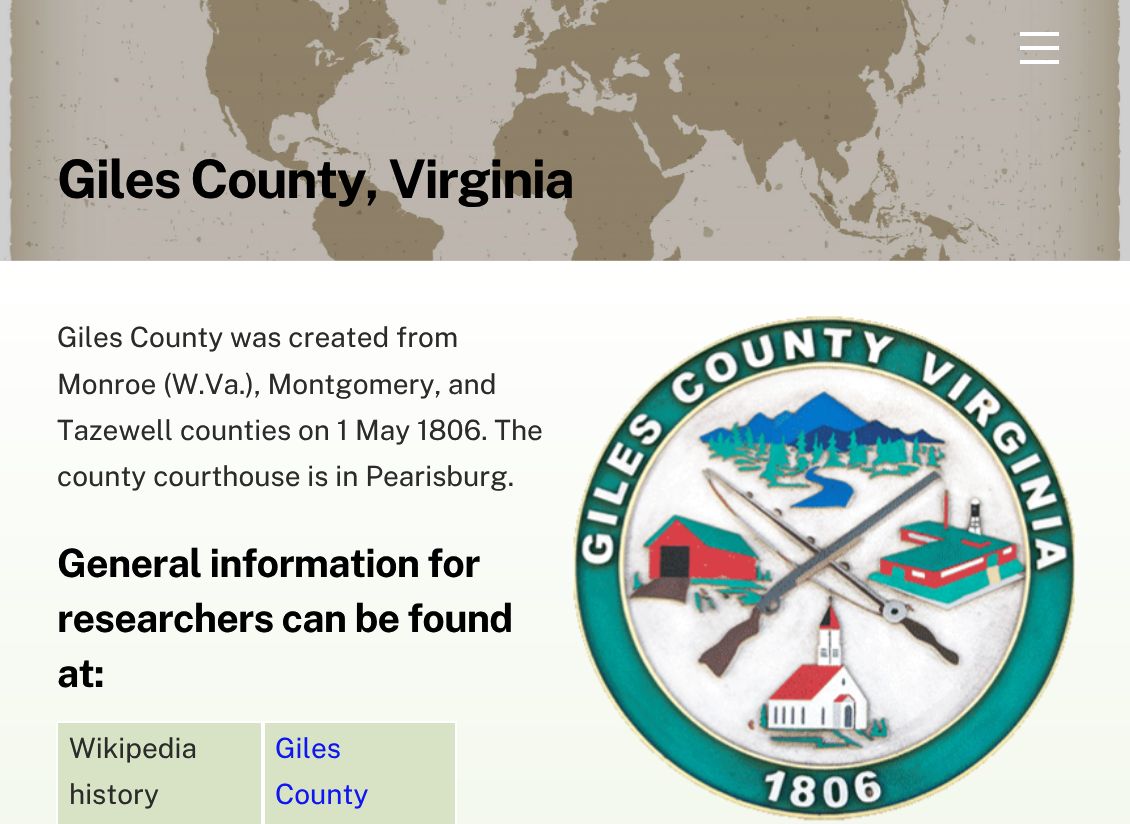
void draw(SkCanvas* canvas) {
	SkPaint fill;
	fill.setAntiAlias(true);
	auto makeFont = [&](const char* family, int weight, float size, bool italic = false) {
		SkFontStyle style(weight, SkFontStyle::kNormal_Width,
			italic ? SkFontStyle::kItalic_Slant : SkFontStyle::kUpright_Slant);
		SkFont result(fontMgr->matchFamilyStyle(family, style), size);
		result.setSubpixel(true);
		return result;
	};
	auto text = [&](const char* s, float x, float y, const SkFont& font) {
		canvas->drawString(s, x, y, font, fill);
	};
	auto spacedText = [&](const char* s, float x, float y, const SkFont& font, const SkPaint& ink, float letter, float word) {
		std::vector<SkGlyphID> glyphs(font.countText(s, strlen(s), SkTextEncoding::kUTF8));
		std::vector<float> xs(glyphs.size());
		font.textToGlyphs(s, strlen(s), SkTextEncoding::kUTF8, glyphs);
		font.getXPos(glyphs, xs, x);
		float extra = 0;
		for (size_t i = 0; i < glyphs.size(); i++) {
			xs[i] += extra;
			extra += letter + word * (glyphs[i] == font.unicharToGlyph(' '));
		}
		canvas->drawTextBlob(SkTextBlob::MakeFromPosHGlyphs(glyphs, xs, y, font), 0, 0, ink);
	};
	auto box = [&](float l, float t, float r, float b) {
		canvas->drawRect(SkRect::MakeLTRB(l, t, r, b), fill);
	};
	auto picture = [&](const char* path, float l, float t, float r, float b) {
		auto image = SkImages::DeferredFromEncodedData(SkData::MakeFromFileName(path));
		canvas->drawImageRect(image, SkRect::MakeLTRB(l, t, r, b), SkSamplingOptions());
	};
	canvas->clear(0xFFCFCFCF);
	picture("image0.png", 4, 0, 1122, 261);
	fill.setColor(0xFFFFFFFF);
	box(1020, 60, 1059, 64);
	box(1020, 32, 1059, 36);
	box(1020, 46, 1059, 50);
	{
		const SkColor colors[] = {0xFFFFFFFF, 0xFFDBEAC8};
		const float stops[] = {0, 1};
		const SkPoint ends[] = {{565, 261}, {565, 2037}};
		fill.setShader(SkGradientShader::MakeLinear(ends, colors, stops, 2, SkTileMode::kClamp));
		fill.setAlpha(255);
	}
	box(0, 261, 1130, 824);
	fill.setShader(nullptr);
	fill.setColor(0xFFD8E3C5);
	canvas->drawRect(SkRect::MakeLTRB(57, 722, 262, 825), fill);
	fill.setStyle(SkPaint::kStroke_Style);
	fill.setStrokeWidth(2);
	fill.setColor(0xFFFFFFFF);
	canvas->drawRect(SkRect::MakeLTRB(57, 722, 262, 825), fill);
	fill.setStyle(SkPaint::kFill_Style);
	fill.setColor(0xFFD8E3C5);
	canvas->drawRect(SkRect::MakeLTRB(264, 722, 456, 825), fill);
	fill.setStyle(SkPaint::kStroke_Style);
	fill.setColor(0xFFFFFFFF);
	canvas->drawRect(SkRect::MakeLTRB(264, 722, 456, 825), fill);
	picture("image1.png", 573, 316, 1075, 821);
	auto font1 = makeFont("Public Sans", 700, 53.25f);
	fill.setStyle(SkPaint::kFill_Style);
	fill.setColor(0xFF000000);
	spacedText("Giles County, Virginia", 57, 198, font1, fill, -1.6f, 0);
	auto font2 = makeFont("Public Sans", 400, 28);
	fill.setColor(0xFF2B2B2B);
	text("Giles County was created from", 57, 347, font2);
	text("Monroe (W.Va.), Montgomery, and", 57, 394, font2);
	text("Tazewell counties on 1 May 1806. The", 57, 440, font2);
	text("county courthouse is in Pearisburg.", 57, 486, font2);
	auto font3 = makeFont("Public Sans", 700, 39.25f);
	fill.setColor(0xFF000000);
	spacedText("General information for", 57, 577, font3, fill, -0.75f, 0);
	spacedText("researchers can be found", 57, 632, font3, fill, -0.75f, 0);
	spacedText("at:", 57, 687, font3, fill, -0.75f, 0);
	fill.setColor(0xFF2B2B2B);
	text("Wikipedia", 69, 758, font2);
	text("history", 69, 804, font2);
	fill.setColor(0xFF0E16F2);
	text("Giles", 275, 758, font2);
	text("County", 275, 804, font2);
}
